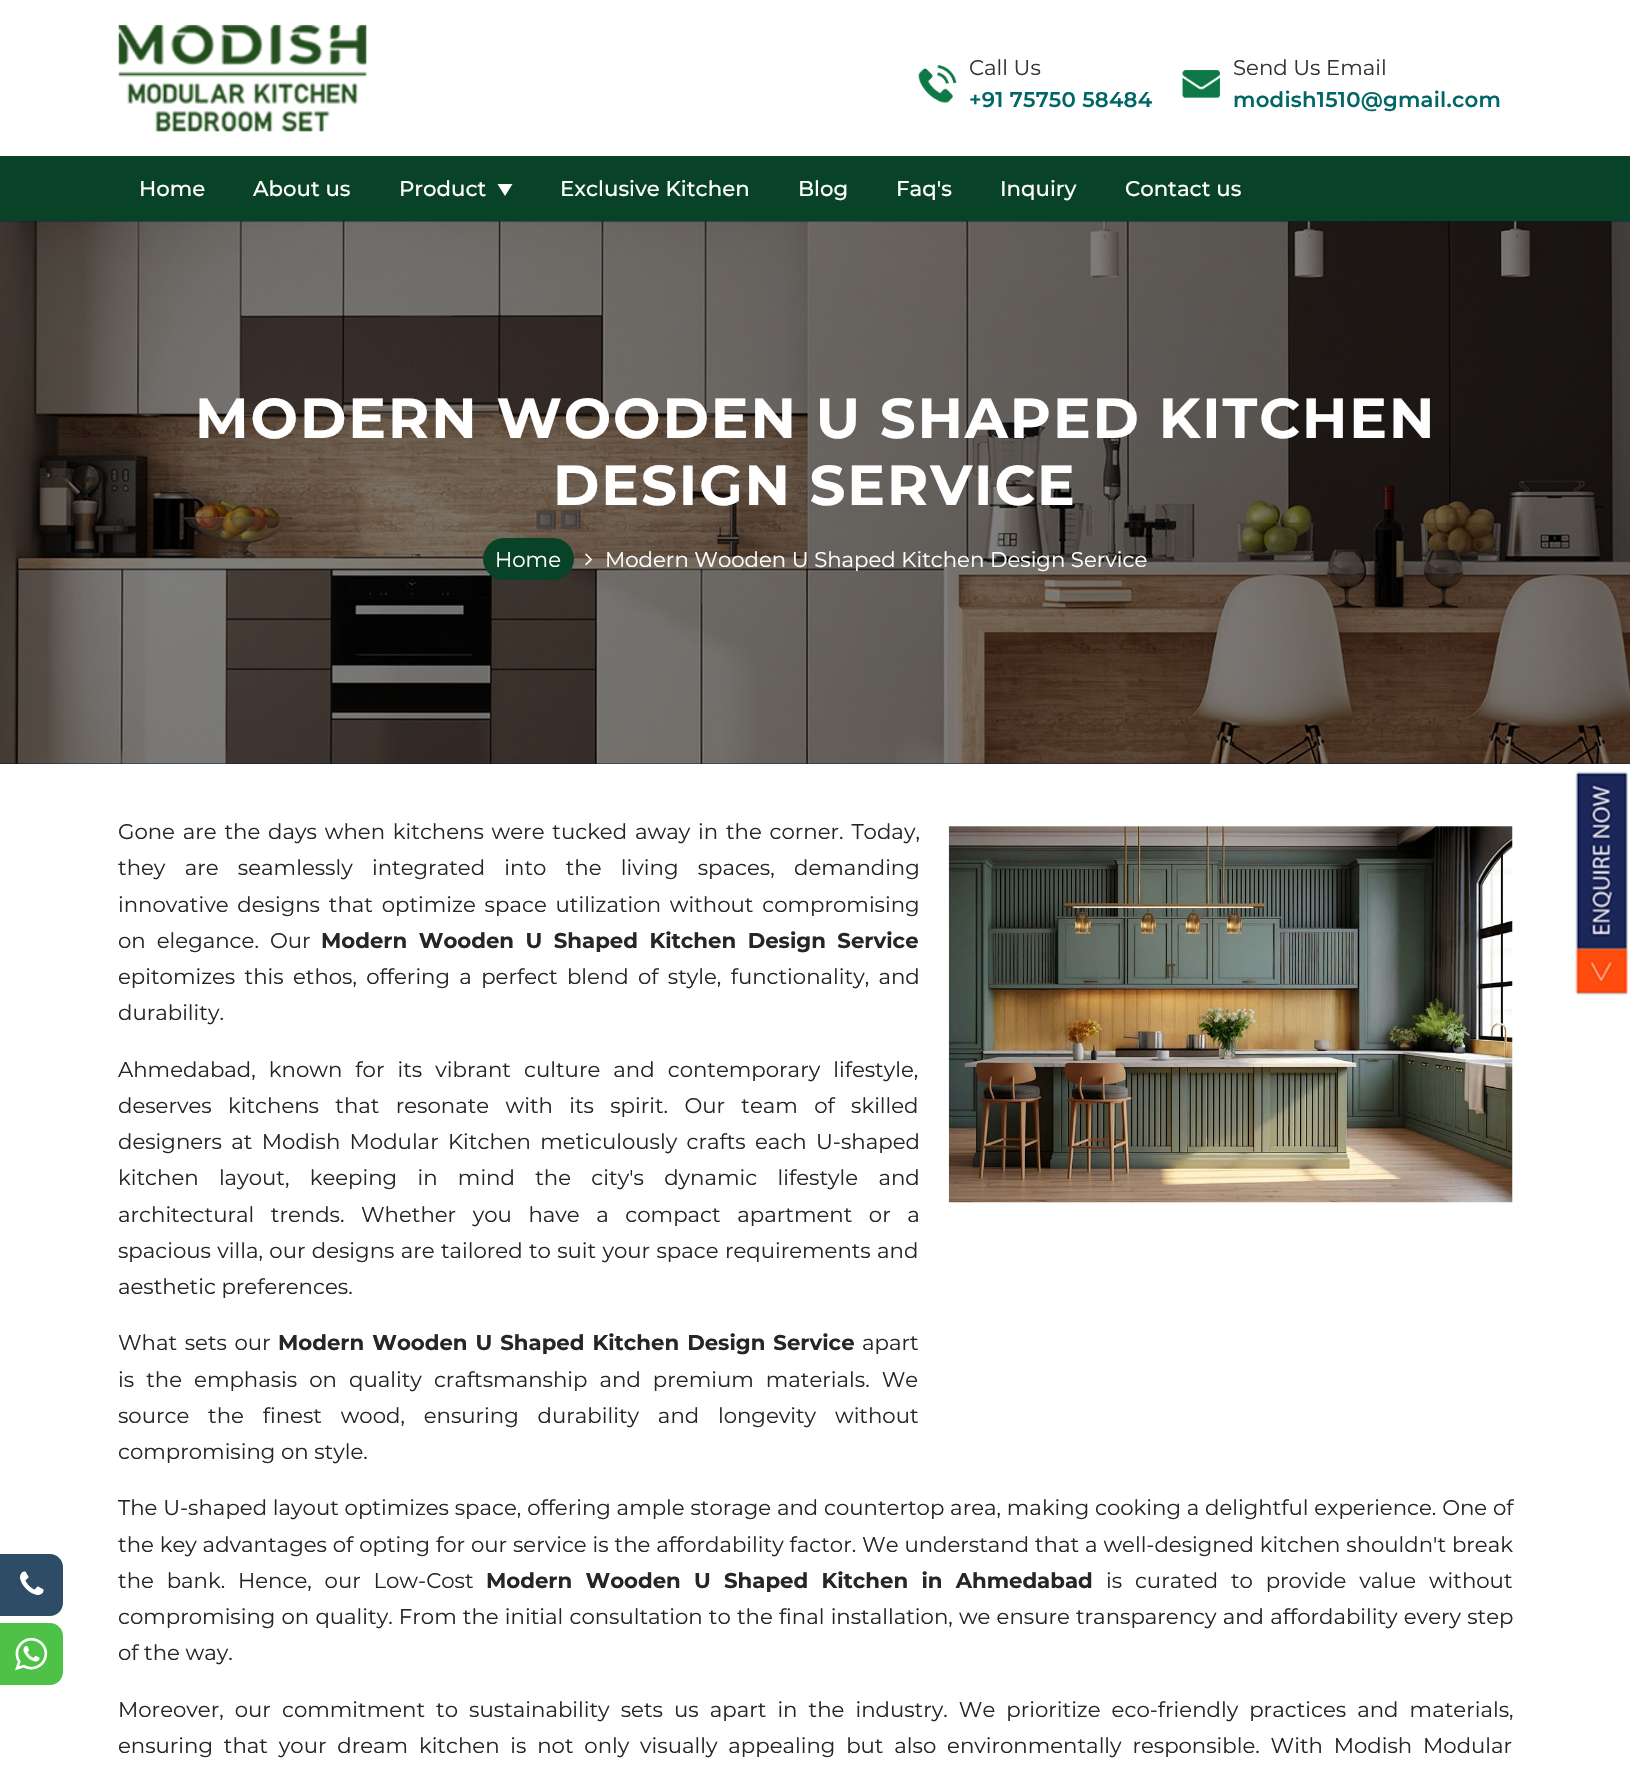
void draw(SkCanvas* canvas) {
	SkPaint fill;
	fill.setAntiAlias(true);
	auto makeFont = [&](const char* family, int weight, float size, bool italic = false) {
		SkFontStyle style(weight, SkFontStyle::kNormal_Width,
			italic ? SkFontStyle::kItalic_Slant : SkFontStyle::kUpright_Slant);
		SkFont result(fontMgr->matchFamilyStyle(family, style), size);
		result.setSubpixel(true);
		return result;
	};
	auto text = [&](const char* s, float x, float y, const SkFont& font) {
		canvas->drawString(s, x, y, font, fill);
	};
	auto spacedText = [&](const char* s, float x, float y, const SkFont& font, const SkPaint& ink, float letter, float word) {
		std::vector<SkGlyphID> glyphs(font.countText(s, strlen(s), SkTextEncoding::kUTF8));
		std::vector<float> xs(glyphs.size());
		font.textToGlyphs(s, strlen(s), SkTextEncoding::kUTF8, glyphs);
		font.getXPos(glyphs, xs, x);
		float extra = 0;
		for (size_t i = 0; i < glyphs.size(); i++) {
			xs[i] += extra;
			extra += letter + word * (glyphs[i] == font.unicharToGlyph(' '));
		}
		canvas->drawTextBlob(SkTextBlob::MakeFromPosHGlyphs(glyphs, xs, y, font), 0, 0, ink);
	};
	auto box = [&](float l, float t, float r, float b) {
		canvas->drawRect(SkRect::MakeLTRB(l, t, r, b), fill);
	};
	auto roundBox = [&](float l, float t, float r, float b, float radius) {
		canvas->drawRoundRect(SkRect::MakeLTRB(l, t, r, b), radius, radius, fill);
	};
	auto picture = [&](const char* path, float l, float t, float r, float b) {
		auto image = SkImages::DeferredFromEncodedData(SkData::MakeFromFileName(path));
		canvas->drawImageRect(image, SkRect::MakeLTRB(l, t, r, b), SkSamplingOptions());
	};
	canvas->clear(0xFFFFFFFF);
	picture("image0.png", 118, 24, 367, 132);
	picture("image1.png", 918, 65, 957, 103);
	picture("image2.png", 1182, 70, 1220, 98);
	fill.setColor(0xFF084327);
	box(0, 156, 1630, 221);
	fill.setColor(0xFFFFFFFF);
	canvas->drawPath(SkPathBuilder().moveTo(497.5f, 184).lineTo(512.5f, 184).lineTo(505, 196).close().detach(), fill);
	fill.setColor(0xFF001B52);
	box(0, 221, 1630, 764);
	picture("image3.png", 0, 221, 1630, 764);
	fill.setColor(0xFF084327);
	roundBox(483, 538, 574, 580, 21);
	picture("image4.png", 585, 553, 592, 566);
	fill.setColor(0xFF2F4C66);
	canvas->drawPath(SkPathBuilder().moveTo(0, 1554).lineTo(50, 1554).cubicTo(57, 1554, 63, 1560, 63, 1567).lineTo(63, 1603).cubicTo(63, 1610, 57, 1616, 50, 1616).lineTo(0, 1616).close().detach(), fill);
	picture("image5.png", 20, 1571, 44, 1595);
	fill.setColor(0xFF4DC247);
	canvas->drawPath(SkPathBuilder().moveTo(0, 1623).lineTo(50, 1623).cubicTo(57, 1623, 63, 1629, 63, 1636).lineTo(63, 1672).cubicTo(63, 1679, 57, 1685, 50, 1685).lineTo(0, 1685).close().detach(), fill);
	picture("image6.png", 15, 1637, 48, 1671);
	picture("image7.png", 948, 826, 1513, 1203);
	picture("image8.png", 1575, 771, 1628, 996);
	auto font1 = makeFont("Montserrat", 400, 21.25f);
	fill.setColor(0xFF333333);
	text("Call Us", 969, 75, font1);
	auto font2 = makeFont("Montserrat", 600, 21.25f);
	fill.setColor(0xFF006766);
	spacedText("+91 75750 58484", 969, 107, font2, fill, 0.25f, 0);
	fill.setColor(0xFF333333);
	text("Send Us Email", 1233, 75, font1);
	fill.setColor(0xFF006766);
	spacedText("modish1510@gmail.com", 1233, 107, font2, fill, 0.25f, 0);
	auto font3 = makeFont("Montserrat", 500, 21.25f);
	fill.setColor(0xFFFFFFFF);
	text("Home", 139, 196, font3);
	text("About us", 253, 196, font3);
	text("Product", 399, 196, font3);
	text("Exclusive Kitchen", 560, 196, font3);
	text("Blog", 798, 196, font3);
	text("Faq's", 896, 196, font3);
	text("Inquiry", 1000, 196, font3);
	text("Contact us", 1125, 196, font3);
	auto font4 = makeFont("Montserrat", 700, 56.25f);
	spacedText("MODERN WOODEN U SHAPED KITCHEN", 195, 438, font4, fill, 1.9f, 0);
	spacedText("DESIGN SERVICE", 553, 505, font4, fill, 1.9f, 0);
	text("Home", 495, 567, font1);
	text("Modern Wooden U Shaped Kitchen Design Service", 605, 567, font1);
	fill.setColor(0xFF272626);
	spacedText("Gone are the days when kitchens were tucked away in the corner. Today,", 118, 839, font1, fill, 0, 2.25f);
	spacedText("they are seamlessly integrated into the living spaces, demanding", 118, 875, font1, fill, 0, 13.75f);
	spacedText("innovative designs that optimize space utilization without compromising", 118, 912, font1, fill, 0, 3.25f);
	spacedText("on elegance. Our", 118, 948, font1, fill, 0, 5.5f);
	auto font5 = makeFont("Montserrat", 700, 21.25f);
	spacedText("Modern Wooden U Shaped Kitchen Design Service", 321, 948, font5, fill, 0, 5.5f);
	spacedText("epitomizes this ethos, offering a perfect blend of style, functionality, and", 118, 984, font1, fill, 0, 3.75f);
	text("durability.", 118, 1020, font1);
	spacedText("Ahmedabad, known for its vibrant culture and contemporary lifestyle,", 118, 1077, font1, fill, 0, 7.5f);
	spacedText("deserves kitchens that resonate with its spirit. Our team of skilled", 118, 1113, font1, fill, 0, 10.75f);
	spacedText("designers at Modish Modular Kitchen meticulously crafts each U-shaped", 118, 1149, font1, fill, 0, 3.75f);
	spacedText("kitchen layout, keeping in mind the city's dynamic lifestyle and", 118, 1185, font1, fill, 0, 14.75f);
	spacedText("architectural trends. Whether you have a compact apartment or a", 118, 1222, font1, fill, 0, 11);
	spacedText("spacious villa, our designs are tailored to suit your space requirements and", 118, 1258, font1, fill, 0, 0.75f);
	text("aesthetic preferences.", 118, 1294, font1);
	spacedText("What sets our", 118, 1350, font1, fill, 0, 2);
	spacedText("Modern Wooden U Shaped Kitchen Design Service", 278, 1350, font5, fill, 0, 2);
	text("apart", 862, 1350, font1);
	spacedText("is the emphasis on quality craftsmanship and premium materials. We", 118, 1387, font1, fill, 0, 6.5f);
	spacedText("source the finest wood, ensuring durability and longevity without", 118, 1423, font1, fill, 0, 13.25f);
	text("compromising on style.", 118, 1459, font1);
	spacedText("The U-shaped layout optimizes space, offering ample storage and countertop area, making cooking a delightful experience. One of", 118, 1515, font1, fill, 0, 0.2f);
	spacedText("the key advantages of opting for our service is the affordability factor. We understand that a well-designed kitchen shouldn't break", 118, 1552, font1, fill, 0, 0.3f);
	spacedText("the bank. Hence, our Low-Cost", 118, 1588, font1, fill, 0, 7.25f);
	spacedText("Modern Wooden U Shaped Kitchen in Ahmedabad", 486, 1588, font5, fill, 0, 7.25f);
	spacedText("is curated to provide value without", 1106, 1588, font1, fill, 0, 7.25f);
	spacedText("compromising on quality. From the initial consultation to the final installation, we ensure transparency and affordability every step", 118, 1624, font1, fill, 0, 0.6f);
	text("of the way.", 118, 1660, font1);
	spacedText("Moreover, our commitment to sustainability sets us apart in the industry. We prioritize eco-friendly practices and materials,", 118, 1717, font1, fill, 0, 5.5f);
	spacedText("ensuring that your dream kitchen is not only visually appealing but also environmentally responsible. With Modish Modular", 118, 1753, font1, fill, 0, 5.25f);
}
